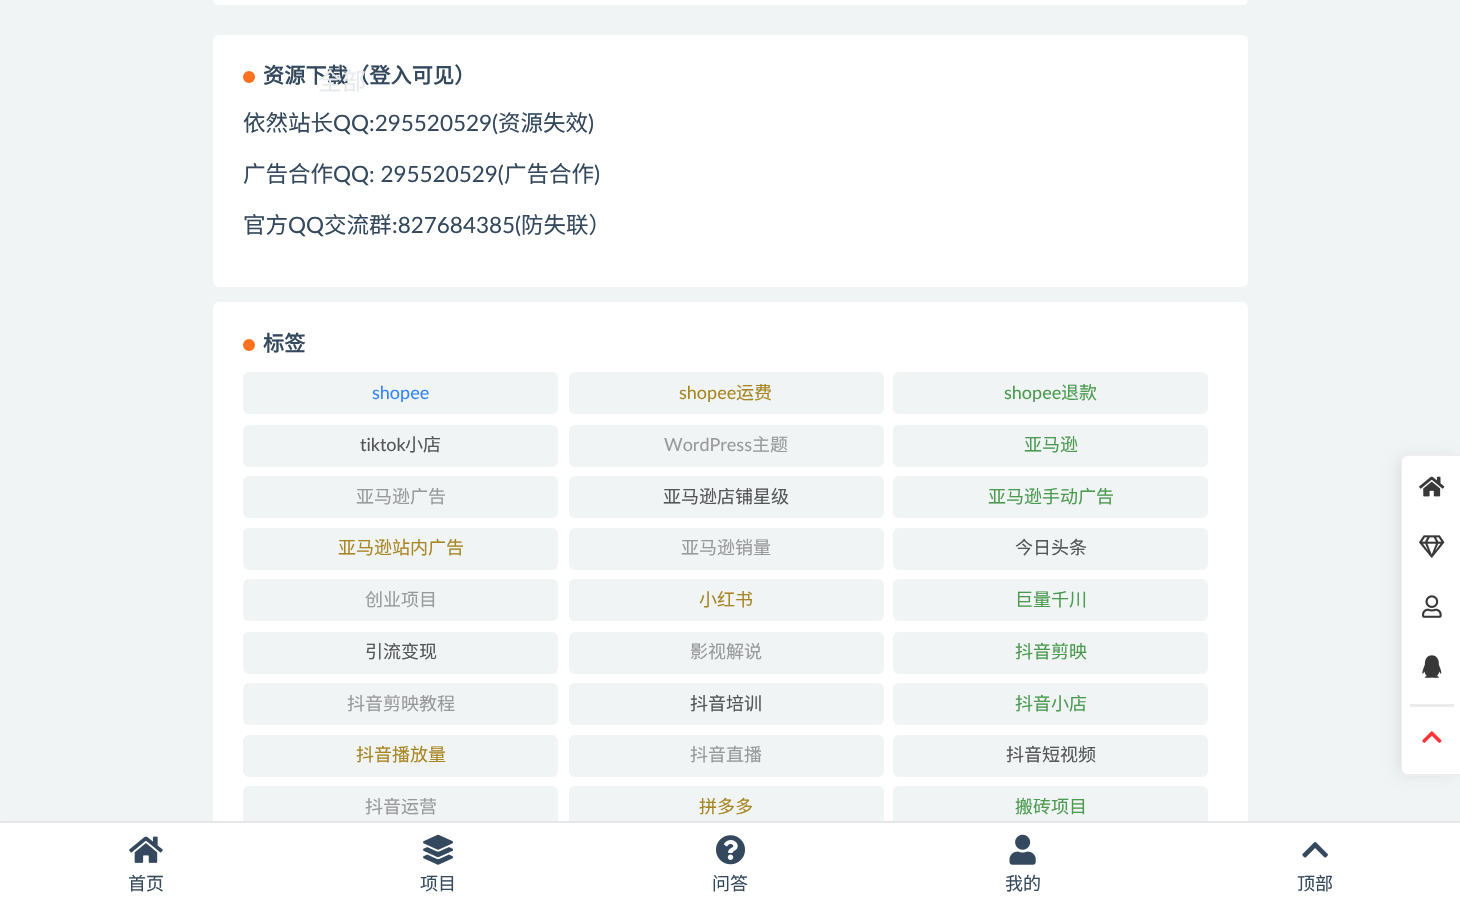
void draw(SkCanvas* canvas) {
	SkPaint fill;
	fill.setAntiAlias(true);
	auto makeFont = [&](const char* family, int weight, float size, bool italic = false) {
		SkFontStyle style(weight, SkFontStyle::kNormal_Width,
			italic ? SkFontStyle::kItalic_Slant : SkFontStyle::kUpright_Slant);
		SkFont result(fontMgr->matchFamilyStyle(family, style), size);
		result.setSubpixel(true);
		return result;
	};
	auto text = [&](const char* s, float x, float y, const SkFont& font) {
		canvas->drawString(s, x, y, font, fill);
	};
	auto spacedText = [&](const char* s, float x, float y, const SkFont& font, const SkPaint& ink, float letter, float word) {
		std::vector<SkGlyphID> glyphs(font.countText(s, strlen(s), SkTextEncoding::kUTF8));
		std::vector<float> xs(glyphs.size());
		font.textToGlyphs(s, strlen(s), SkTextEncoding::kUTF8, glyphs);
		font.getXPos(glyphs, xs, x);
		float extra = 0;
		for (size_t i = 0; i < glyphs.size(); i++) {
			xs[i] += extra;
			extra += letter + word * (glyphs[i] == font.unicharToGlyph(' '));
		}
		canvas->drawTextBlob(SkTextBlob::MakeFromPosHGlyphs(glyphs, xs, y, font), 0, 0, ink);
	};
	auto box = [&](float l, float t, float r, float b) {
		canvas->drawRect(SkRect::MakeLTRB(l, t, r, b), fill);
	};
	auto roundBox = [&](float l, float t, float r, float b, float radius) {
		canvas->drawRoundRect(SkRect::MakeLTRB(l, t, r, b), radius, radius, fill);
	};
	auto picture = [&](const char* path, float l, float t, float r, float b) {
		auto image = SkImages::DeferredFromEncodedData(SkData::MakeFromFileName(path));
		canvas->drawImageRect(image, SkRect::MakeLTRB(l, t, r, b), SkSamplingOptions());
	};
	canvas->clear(0xFFF0F4F5);
	fill.setColor(0xFFFFFFFF);
	roundBox(213, -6, 1248, 5, 6);
	roundBox(213, 35, 1248, 287, 6);
	fill.setColor(0xFFFD721F);
	canvas->drawCircle(249, 77, 6, fill);
	fill.setColor(0xFFFFFFFF);
	roundBox(213, 302, 1248, 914, 6);
	fill.setColor(0xFFFD721F);
	canvas->drawCircle(249, 345, 6, fill);
	fill.setColor(0xFFF0F4F5);
	roundBox(243, 372, 558, 414, 6);
	roundBox(569, 372, 884, 414, 6);
	roundBox(893, 372, 1208, 414, 6);
	roundBox(243, 425, 558, 467, 6);
	roundBox(569, 425, 884, 467, 6);
	roundBox(893, 425, 1208, 467, 6);
	roundBox(243, 476, 558, 518, 6);
	roundBox(569, 476, 884, 518, 6);
	roundBox(893, 476, 1208, 518, 6);
	roundBox(243, 528, 558, 570, 6);
	roundBox(569, 528, 884, 570, 6);
	roundBox(893, 528, 1208, 570, 6);
	roundBox(243, 579, 558, 621, 6);
	roundBox(569, 579, 884, 621, 6);
	roundBox(893, 579, 1208, 621, 6);
	roundBox(243, 632, 558, 674, 6);
	roundBox(569, 632, 884, 674, 6);
	roundBox(893, 632, 1208, 674, 6);
	roundBox(243, 683, 558, 725, 6);
	roundBox(569, 683, 884, 725, 6);
	roundBox(893, 683, 1208, 725, 6);
	roundBox(243, 735, 558, 777, 6);
	roundBox(569, 735, 884, 777, 6);
	roundBox(893, 735, 1208, 777, 6);
	roundBox(243, 786, 558, 828, 6);
	roundBox(569, 786, 884, 828, 6);
	roundBox(893, 786, 1208, 828, 6);
	fill.setColor(0x1A000000);
	fill.setMaskFilter(SkMaskFilter::MakeBlur(kNormal_SkBlurStyle, 7.5f));
	canvas->drawRoundRect(SkRect::MakeLTRB(1400, 458, 1454, 773), 5, 5, fill);
	fill.setMaskFilter(nullptr);
	fill.setColor(0xFFFFFFFF);
	canvas->drawPath(SkPathBuilder().moveTo(1409, 455).lineTo(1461, 455).lineTo(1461, 776).lineTo(1409, 776).cubicTo(1404.5f, 776, 1401, 772.5f, 1401, 768).lineTo(1401, 463).cubicTo(1401, 458.5f, 1404.5f, 455, 1409, 455).close().detach(), fill);
	fill.setColor(0xFFEEEEEE);
	canvas->drawPath(SkPathBuilder(SkPathFillType::kEvenOdd).moveTo(1408, 454).lineTo(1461, 454).lineTo(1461, 776).lineTo(1408, 776).cubicTo(1404, 776, 1401, 772, 1401, 768).lineTo(1401, 462).cubicTo(1401, 458, 1404, 454, 1408, 454).close().moveTo(1408, 456).lineTo(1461, 456).lineTo(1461, 774).lineTo(1408, 774).cubicTo(1405, 774, 1402, 771, 1402, 768).lineTo(1402, 462).cubicTo(1402, 459, 1405, 456, 1408, 456).close().detach(), fill);
	picture("image0.png", 1419, 476, 1445, 497);
	picture("image1.png", 1419, 535, 1445, 558);
	picture("image2.png", 1422, 595, 1442, 618);
	picture("image3.png", 1422, 655, 1442, 678);
	fill.setColor(0xFFEBEBEB);
	box(1410, 704, 1454, 707);
	picture("image4.png", 1422, 731, 1442, 743);
	fill.setColor(0xFFFFFFFF);
	box(0, 821, 1460, 908);
	fill.setColor(0xFFE6E6E6);
	roundBox(0, 821, 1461, 823, 1);
	picture("image5.png", 129, 836, 163, 863);
	picture("image6.png", 423, 834, 453, 865);
	picture("image7.png", 716, 835, 745, 865);
	picture("image8.png", 1009, 834, 1036, 865);
	picture("image9.png", 1302, 842, 1328, 858);
	auto font1 = makeFont("Noto Sans CJK SC", 700, 21);
	fill.setColor(0xFF34495E);
	spacedText("资源下载（登入可见）", 263, 83, font1, fill, 0.25f, 0);
	auto font2 = makeFont("Noto Sans CJK SC", 400, 22.5f);
	text("依然站长", 243, 131, font2);
	auto font3 = makeFont("Lato", 400, 22.5f);
	text("QQ:295520529(", 333, 131, font3);
	text("资源失效", 498, 131, font2);
	text(")", 588, 131, font3);
	text("广告合作", 243, 182, font2);
	text("QQ: 295520529(", 333, 182, font3);
	text("广告合作", 504, 182, font2);
	text(")", 594, 182, font3);
	text("官方", 243, 233, font2);
	text("QQ", 288, 233, font3);
	text("交流群", 324, 233, font2);
	text(":827684385(", 392, 233, font3);
	text("防失联）", 521, 233, font2);
	spacedText("标签", 263, 351, font1, fill, 0.25f, 0);
	auto font4 = makeFont("Lato", 400, 18);
	fill.setColor(0xFF3385FC);
	text("shopee", 372, 399, font4);
	fill.setColor(0xFFA78522);
	text("shopee", 679, 399, font4);
	auto font5 = makeFont("Noto Sans CJK SC", 400, 18);
	text("运费", 736, 399, font5);
	fill.setColor(0xFF4C9A50);
	text("shopee", 1004, 399, font4);
	text("退款", 1061, 399, font5);
	fill.setColor(0xFF555555);
	text("tiktok", 360, 451, font4);
	text("小店", 405, 451, font5);
	fill.setColor(0xFF999999);
	text("WordPress", 664, 451, font4);
	text("主题", 752, 451, font5);
	fill.setColor(0xFF4C9A50);
	text("亚马逊", 1024, 451, font5);
	fill.setColor(0xFF999999);
	text("亚马逊广告", 356, 503, font5);
	fill.setColor(0xFF555555);
	text("亚马逊店铺星级", 663, 503, font5);
	fill.setColor(0xFF4C9A50);
	text("亚马逊手动广告", 988, 503, font5);
	fill.setColor(0xFFA78522);
	text("亚马逊站内广告", 338, 554, font5);
	fill.setColor(0xFF999999);
	text("亚马逊销量", 681, 554, font5);
	fill.setColor(0xFF555555);
	text("今日头条", 1015, 554, font5);
	fill.setColor(0xFF999999);
	text("创业项目", 365, 606, font5);
	fill.setColor(0xFFA78522);
	text("小红书", 699, 606, font5);
	fill.setColor(0xFF4C9A50);
	text("巨量千川", 1015, 606, font5);
	fill.setColor(0xFF555555);
	text("引流变现", 365, 658, font5);
	fill.setColor(0xFF999999);
	text("影视解说", 690, 658, font5);
	fill.setColor(0xFF4C9A50);
	text("抖音剪映", 1015, 658, font5);
	fill.setColor(0xFF999999);
	text("抖音剪映教程", 347, 710, font5);
	fill.setColor(0xFF555555);
	text("抖音培训", 690, 710, font5);
	fill.setColor(0xFF4C9A50);
	text("抖音小店", 1015, 710, font5);
	fill.setColor(0xFFA78522);
	text("抖音播放量", 356, 761, font5);
	fill.setColor(0xFF999999);
	text("抖音直播", 690, 761, font5);
	fill.setColor(0xFF555555);
	text("抖音短视频", 1006, 761, font5);
	fill.setColor(0xFF999999);
	text("抖音运营", 365, 813, font5);
	fill.setColor(0xFFA78522);
	text("拼多多", 699, 813, font5);
	fill.setColor(0xFF4C9A50);
	text("搬砖项目", 1015, 813, font5);
	auto font6 = makeFont("Noto Sans CJK SC", 400, 24);
	fill.setColor(0xFFE7EAEC);
	text("全部", 318, 90, font6);
	fill.setColor(0xFF34495E);
	text("首页", 128, 890, font5);
	text("项目", 420, 890, font5);
	text("问答", 712, 890, font5);
	text("我的", 1005, 890, font5);
	text("顶部", 1297, 890, font5);
}
